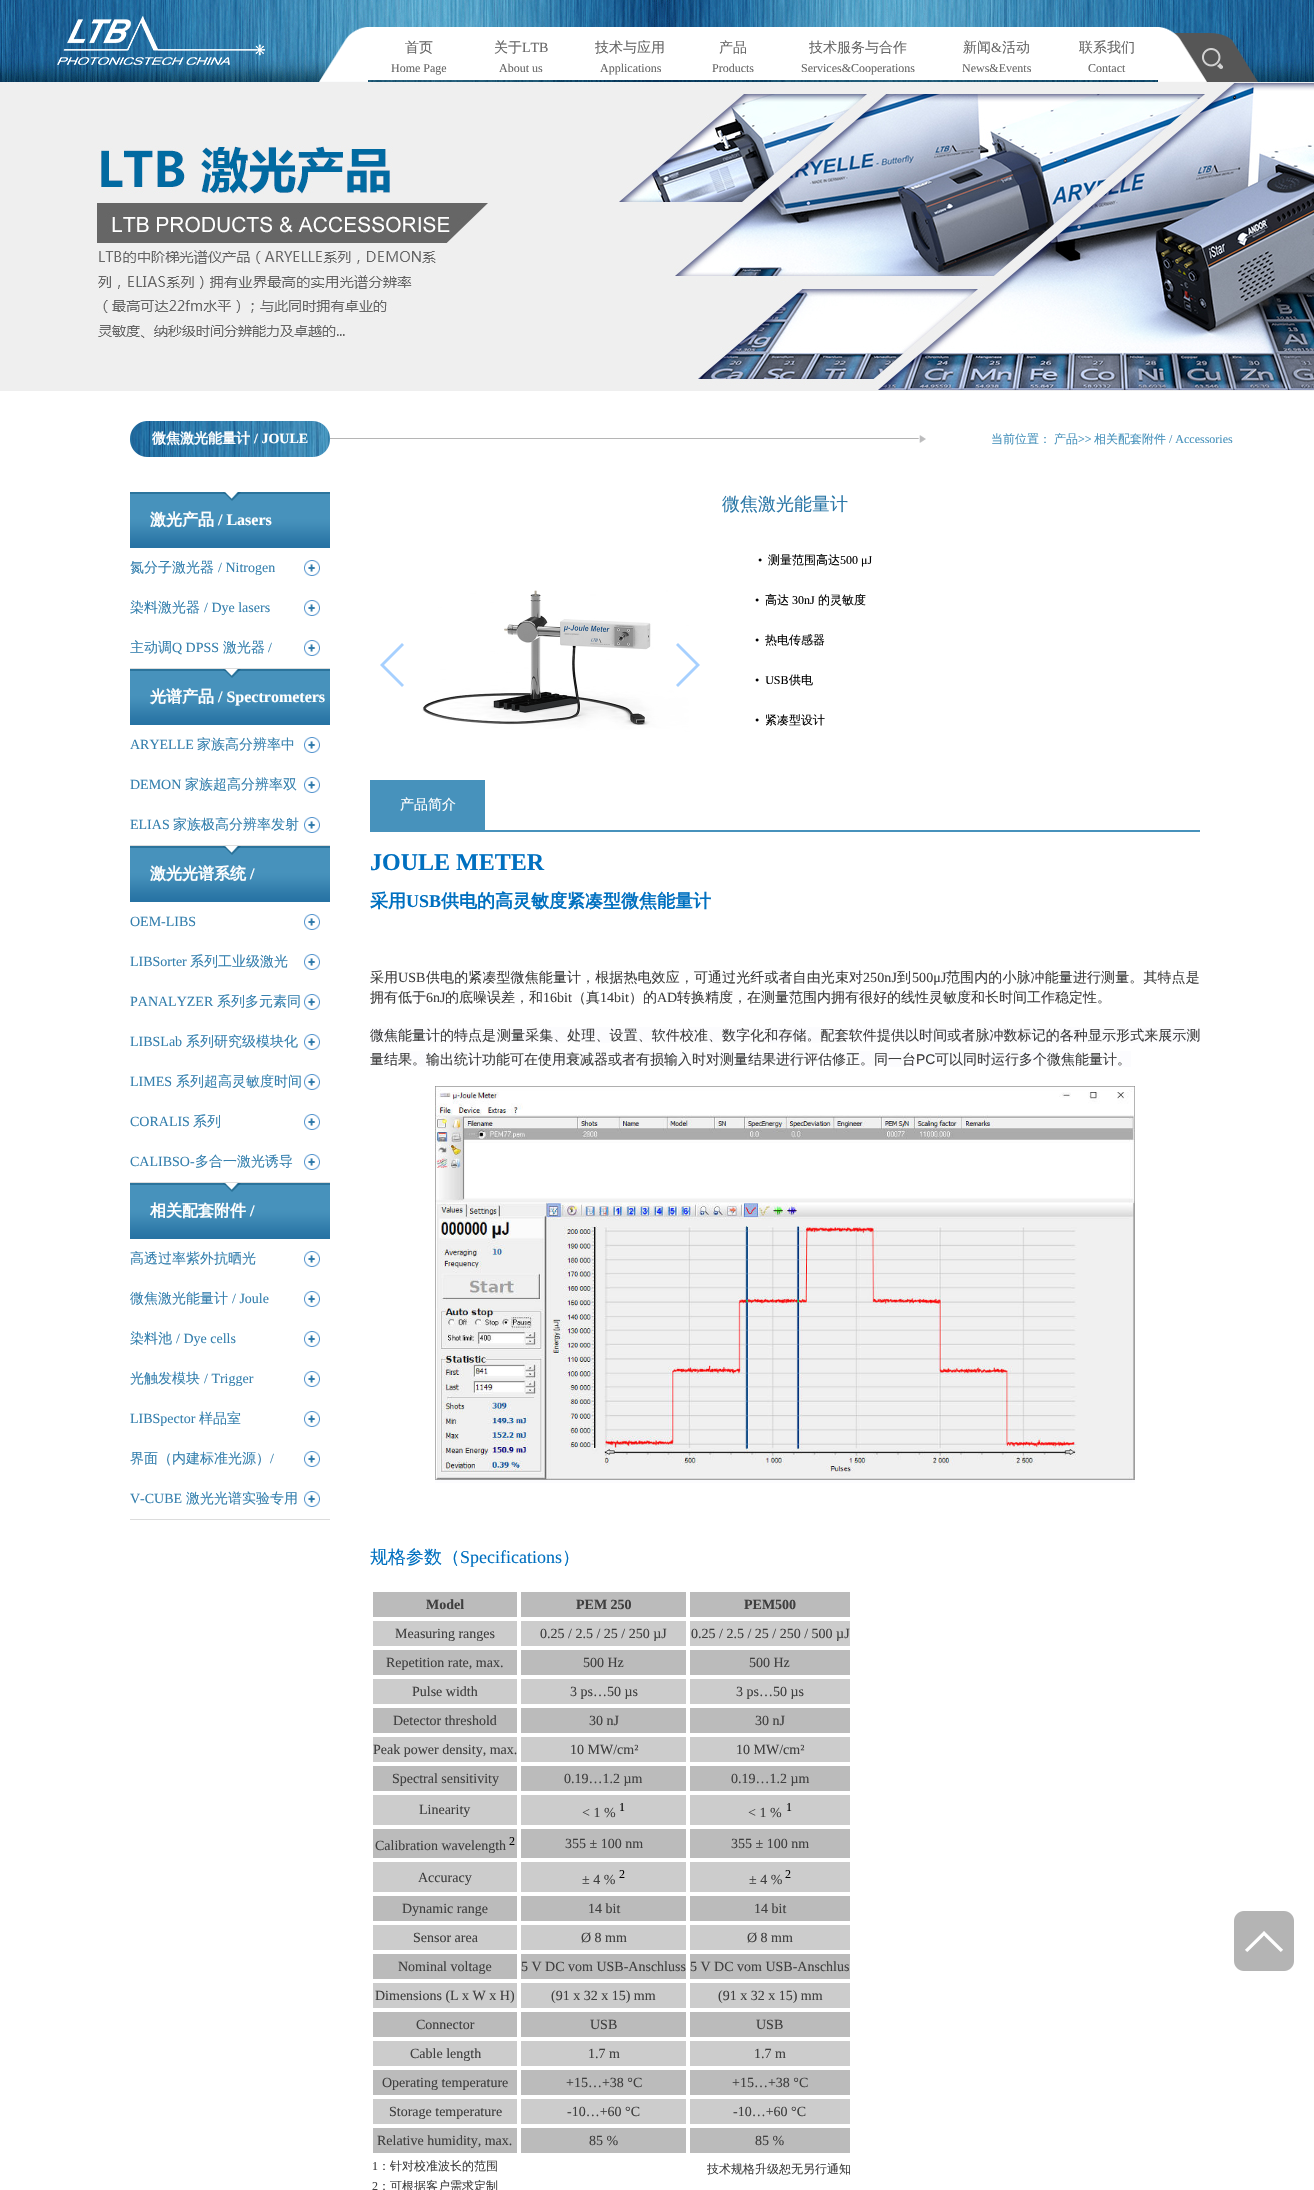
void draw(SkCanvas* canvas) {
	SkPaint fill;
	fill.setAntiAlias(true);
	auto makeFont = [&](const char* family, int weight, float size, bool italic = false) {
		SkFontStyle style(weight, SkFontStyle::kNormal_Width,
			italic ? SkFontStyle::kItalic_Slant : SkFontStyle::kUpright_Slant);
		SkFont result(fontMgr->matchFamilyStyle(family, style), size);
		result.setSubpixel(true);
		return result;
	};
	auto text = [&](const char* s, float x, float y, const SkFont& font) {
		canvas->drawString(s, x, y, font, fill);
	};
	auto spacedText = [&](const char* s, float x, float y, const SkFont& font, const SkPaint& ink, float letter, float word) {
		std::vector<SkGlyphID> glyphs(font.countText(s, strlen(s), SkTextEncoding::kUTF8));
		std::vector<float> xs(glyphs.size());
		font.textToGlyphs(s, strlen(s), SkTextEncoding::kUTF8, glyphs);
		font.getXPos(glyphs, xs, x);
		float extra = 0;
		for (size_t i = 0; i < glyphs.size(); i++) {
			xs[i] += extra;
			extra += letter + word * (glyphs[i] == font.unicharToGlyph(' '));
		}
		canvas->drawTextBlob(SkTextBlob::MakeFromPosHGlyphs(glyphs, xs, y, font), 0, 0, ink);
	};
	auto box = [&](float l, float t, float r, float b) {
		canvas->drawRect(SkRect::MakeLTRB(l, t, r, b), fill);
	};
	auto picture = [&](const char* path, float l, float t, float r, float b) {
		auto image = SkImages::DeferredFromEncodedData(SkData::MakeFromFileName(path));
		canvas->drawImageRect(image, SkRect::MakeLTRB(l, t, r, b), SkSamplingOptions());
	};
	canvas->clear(0xFFFFFFFF);
	picture("image0.png", 0, 0, 1314, 82);
	picture("image1.png", 57, 16, 265, 65);
	picture("image2.png", 319, 27, 368, 82);
	picture("image4.png", 1158, 33, 1258, 82);
	picture("image3.png", 1158, 27, 1207, 82);
	fill.setColor(0xFFFFFFFF);
	box(368, 27, 1158, 80);
	picture("image5.png", 0, 82, 1314, 391);
	picture("image6.png", 130, 421, 330, 457);
	picture("image7.png", 330, 435, 926, 443);
	fill.setColor(0xFFDCDCDC);
	box(130, 668, 330, 669);
	picture("image8.png", 130, 492, 330, 548);
	picture("image9.png", 304, 560, 320, 576);
	picture("image9.png", 304, 600, 320, 616);
	picture("image9.png", 304, 640, 320, 656);
	box(130, 845, 330, 846);
	picture("image8.png", 130, 669, 330, 725);
	picture("image9.png", 304, 737, 320, 753);
	picture("image9.png", 304, 777, 320, 793);
	picture("image9.png", 304, 817, 320, 833);
	box(130, 1182, 330, 1183);
	picture("image8.png", 130, 846, 330, 902);
	picture("image9.png", 304, 914, 320, 930);
	picture("image9.png", 304, 954, 320, 970);
	picture("image9.png", 304, 994, 320, 1010);
	picture("image9.png", 304, 1034, 320, 1050);
	picture("image9.png", 304, 1074, 320, 1090);
	picture("image9.png", 304, 1114, 320, 1130);
	picture("image9.png", 304, 1154, 320, 1170);
	box(130, 1519, 330, 1520);
	picture("image8.png", 130, 1183, 330, 1239);
	picture("image9.png", 304, 1251, 320, 1267);
	picture("image9.png", 304, 1291, 320, 1307);
	picture("image9.png", 304, 1331, 320, 1347);
	picture("image9.png", 304, 1371, 320, 1387);
	picture("image9.png", 304, 1411, 320, 1427);
	picture("image9.png", 304, 1451, 320, 1467);
	picture("image9.png", 304, 1491, 320, 1507);
	fill.setColor(0xFFA6D0FF);
	canvas->drawPath(SkPathBuilder().moveTo(380, 665).lineTo(402, 643).lineTo(404, 645).lineTo(384, 665).lineTo(404, 685).lineTo(402, 687).close().detach(), fill);
	picture("image10.png", 422, 590, 710, 780);
	canvas->drawPath(SkPathBuilder().moveTo(700, 665).lineTo(678, 687).lineTo(676, 685).lineTo(696, 665).lineTo(676, 645).lineTo(678, 643).close().detach(), fill);
	fill.setColor(0xFF4792BC);
	box(370, 830, 1200, 832);
	box(370, 780, 485, 830);
	fill.setColor(0xFFFCFCFE);
	box(370, 1027, 1200, 1043);
	box(370, 1051, 1131, 1067);
	picture("image11.png", 435, 1086, 1135, 1480);
	box(435, 1480, 1135, 1483);
	fill.setColor(0xFFBBBBBB);
	box(373, 1592, 517, 1617);
	box(521, 1592, 686, 1617);
	box(690, 1592, 850, 1617);
	fill.setColor(0xFFCCCCCC);
	box(373, 1621, 517, 1646);
	box(521, 1621, 686, 1646);
	box(690, 1621, 850, 1646);
	fill.setColor(0xFFBBBBBB);
	box(373, 1650, 517, 1675);
	box(521, 1650, 686, 1675);
	box(690, 1650, 850, 1675);
	fill.setColor(0xFFCCCCCC);
	box(373, 1679, 517, 1704);
	box(521, 1679, 686, 1704);
	box(690, 1679, 850, 1704);
	fill.setColor(0xFFBBBBBB);
	box(373, 1708, 517, 1733);
	box(521, 1708, 686, 1733);
	box(690, 1708, 850, 1733);
	fill.setColor(0xFFCCCCCC);
	box(373, 1737, 517, 1762);
	box(521, 1737, 686, 1762);
	box(690, 1737, 850, 1762);
	fill.setColor(0xFFBBBBBB);
	box(373, 1766, 517, 1791);
	box(521, 1766, 686, 1791);
	box(690, 1766, 850, 1791);
	fill.setColor(0xFFCCCCCC);
	box(373, 1795, 517, 1825);
	box(521, 1795, 686, 1825);
	box(690, 1795, 850, 1825);
	fill.setColor(0xFFBBBBBB);
	box(373, 1829, 517, 1858);
	box(521, 1829, 686, 1858);
	box(690, 1829, 850, 1858);
	fill.setColor(0xFFCCCCCC);
	box(373, 1862, 517, 1892);
	box(521, 1862, 686, 1892);
	box(690, 1862, 850, 1892);
	fill.setColor(0xFFBBBBBB);
	box(373, 1896, 517, 1921);
	box(521, 1896, 686, 1921);
	box(690, 1896, 850, 1921);
	fill.setColor(0xFFCCCCCC);
	box(373, 1925, 517, 1950);
	box(521, 1925, 686, 1950);
	box(690, 1925, 850, 1950);
	fill.setColor(0xFFBBBBBB);
	box(373, 1954, 517, 1979);
	box(521, 1954, 686, 1979);
	box(690, 1954, 850, 1979);
	fill.setColor(0xFFCCCCCC);
	box(373, 1983, 517, 2008);
	box(521, 1983, 686, 2008);
	box(690, 1983, 850, 2008);
	fill.setColor(0xFFBBBBBB);
	box(373, 2012, 517, 2037);
	box(521, 2012, 686, 2037);
	box(690, 2012, 850, 2037);
	fill.setColor(0xFFCCCCCC);
	box(373, 2041, 517, 2066);
	box(521, 2041, 686, 2066);
	box(690, 2041, 850, 2066);
	fill.setColor(0xFFBBBBBB);
	box(373, 2070, 517, 2095);
	box(521, 2070, 686, 2095);
	box(690, 2070, 850, 2095);
	fill.setColor(0xFFCCCCCC);
	box(373, 2099, 517, 2124);
	box(521, 2099, 686, 2124);
	box(690, 2099, 850, 2124);
	fill.setColor(0xFFBBBBBB);
	box(373, 2128, 517, 2153);
	box(521, 2128, 686, 2153);
	box(690, 2128, 850, 2153);
	picture("image12.png", 1234, 1911, 1294, 1971);
	auto font1 = makeFont("WenQuanYi Zen Hei", 500, 14);
	fill.setColor(0xFF666666);
	text("首页", 405, 52, font1);
	auto font2 = makeFont("Liberation Serif", 400, 12);
	text("Home Page", 391, 72, font2);
	text("关于", 494, 52, font1);
	auto font3 = makeFont("Liberation Serif", 400, 14);
	text("LTB", 522, 52, font3);
	text("About us", 499, 72, font2);
	text("技术与应用", 595, 52, font1);
	text("Applications", 600, 72, font2);
	text("产品", 719, 52, font1);
	text("Products", 712, 72, font2);
	text("技术服务与合作", 809, 52, font1);
	text("Services&Cooperations", 801, 72, font2);
	text("新闻", 963, 52, font1);
	text("&", 991, 52, font3);
	text("活动", 1002, 52, font1);
	text("News&Events", 962, 72, font2);
	text("联系我们", 1079, 52, font1);
	text("Contact", 1088, 72, font2);
	auto font4 = makeFont("WenQuanYi Zen Hei", 700, 14);
	fill.setColor(0xFFFFFFFF);
	text("微焦激光能量计", 152, 443, font4);
	auto font5 = makeFont("Liberation Serif", 700, 14);
	text("/ JOULE", 254, 443, font5);
	auto font6 = makeFont("WenQuanYi Zen Hei", 500, 12);
	fill.setColor(0xFF4792BC);
	text("当前位置：", 991, 443, font6);
	text("产品", 1054, 443, font6);
	text(">>", 1078, 443, font2);
	text("相关配套附件", 1094, 443, font6);
	text("/ Accessories", 1169, 443, font2);
	auto font7 = makeFont("WenQuanYi Zen Hei", 700, 16);
	fill.setColor(0xFFFFFFFF);
	text("激光产品", 150, 525, font7);
	auto font8 = makeFont("Liberation Serif", 700, 16);
	text("/ Lasers", 218, 525, font8);
	fill.setColor(0xFF3580AE);
	text("氮分子激光器", 130, 572, font1);
	text("/ Nitrogen", 218, 572, font3);
	text("染料激光器", 130, 612, font1);
	text("/ Dye lasers", 204, 612, font3);
	text("主动调", 130, 652, font1);
	text("Q DPSS", 172, 652, font3);
	text("激光器", 223, 652, font1);
	text("/", 268, 652, font3);
	fill.setColor(0xFFFFFFFF);
	text("光谱产品", 150, 702, font7);
	text("/ Spectrometers", 218, 702, font8);
	fill.setColor(0xFF3580AE);
	text("ARYELLE", 130, 749, font3);
	text("家族高分辨率中", 197, 749, font1);
	text("DEMON", 130, 789, font3);
	text("家族超高分辨率双", 185, 789, font1);
	text("ELIAS", 130, 829, font3);
	text("家族极高分辨率发射", 173, 829, font1);
	fill.setColor(0xFFFFFFFF);
	text("激光光谱系统", 150, 879, font7);
	text("/", 250, 879, font8);
	fill.setColor(0xFF3580AE);
	text("OEM-LIBS", 130, 926, font3);
	text("LIBSorter", 130, 966, font3);
	text("系列工业级激光", 190, 966, font1);
	text("PANALYZER", 130, 1006, font3);
	text("系列多元素同", 217, 1006, font1);
	text("LIBSLab", 130, 1046, font3);
	text("系列研究级模块化", 186, 1046, font1);
	text("LIMES", 130, 1086, font3);
	text("系列超高灵敏度时间", 176, 1086, font1);
	text("CORALIS", 130, 1126, font3);
	text("系列", 193, 1126, font1);
	text("CALIBSO-", 130, 1166, font3);
	text("多合一激光诱导", 195, 1166, font1);
	fill.setColor(0xFFFFFFFF);
	text("相关配套附件", 150, 1216, font7);
	text("/", 250, 1216, font8);
	fill.setColor(0xFF3580AE);
	text("高透过率紫外抗晒光", 130, 1263, font1);
	text("微焦激光能量计", 130, 1303, font1);
	text("/ Joule", 232, 1303, font3);
	text("染料池", 130, 1343, font1);
	text("/ Dye cells", 176, 1343, font3);
	text("光触发模块", 130, 1383, font1);
	text("/ Trigger", 204, 1383, font3);
	text("LIBSpector", 130, 1423, font3);
	text("样品室", 199, 1423, font1);
	text("界面（内建标准光源）", 130, 1463, font1);
	text("/", 270, 1463, font3);
	text("V-CUBE", 130, 1503, font3);
	text("激光光谱实验专用", 186, 1503, font1);
	auto font9 = makeFont("WenQuanYi Zen Hei", 500, 18);
	fill.setColor(0xFF2B77A7);
	text("微焦激光能量计", 722, 510, font9);
	fill.setColor(0xFF000000);
	text("•", 758, 564, font2);
	text("测量范围高达", 768, 564, font6);
	text("500 μJ", 840, 564, font2);
	text("•", 755, 604, font2);
	text("高达", 765, 604, font6);
	text("30nJ", 792, 604, font2);
	text("的灵敏度", 818, 604, font6);
	text("•", 755, 644, font2);
	text("热电传感器", 765, 644, font6);
	text("•  USB", 755, 684, font2);
	text("供电", 789, 684, font6);
	text("•", 755, 724, font2);
	text("紧凑型设计", 765, 724, font6);
	fill.setColor(0xFFFFFFFF);
	text("产品简介", 400, 809, font1);
	auto font10 = makeFont("Liberation Serif", 700, 24);
	fill.setColor(0xFF0070C0);
	text("JOULE METER", 370, 870, font10);
	auto font11 = makeFont("WenQuanYi Zen Hei", 700, 18);
	text("采用", 370, 907, font11);
	auto font12 = makeFont("Liberation Serif", 700, 18);
	text("USB", 406, 907, font12);
	text("供电的高灵敏度紧凑型微焦能量计", 441, 907, font11);
	fill.setColor(0xFF3F3F3F);
	spacedText("采用", 370, 982, font1, fill, 0.1f, 0);
	spacedText("USB", 398, 982, font3, fill, 0.1f, 0);
	spacedText("供电的紧凑型微焦能量计，根据热电效应，可通过光纤或者自由光束对", 426, 982, font1, fill, 0.1f, 0);
	spacedText("250nJ", 863, 982, font3, fill, 0.1f, 0);
	spacedText("到", 897, 982, font1, fill, 0.1f, 0);
	spacedText("500μJ", 912, 982, font3, fill, 0.1f, 0);
	spacedText("范围内的小脉冲能量进行测量。其特点是", 946, 982, font1, fill, 0.1f, 0);
	text("拥有低于", 370, 1002, font1);
	text("6nJ", 426, 1002, font3);
	text("的底噪误差，和", 445, 1002, font1);
	text("16bit", 543, 1002, font3);
	text("（真", 572, 1002, font1);
	text("14bit", 600, 1002, font3);
	text("）的", 629, 1002, font1);
	text("AD", 657, 1002, font3);
	text("转换精度，在测量范围内拥有很好的线性灵敏度和长时间工作稳定性。", 677, 1002, font1);
	text("微焦能量计的特点是", 370, 1040, font1);
	spacedText("测量采集、处理、设置、软件校准、数字化和存储。配套软件提供以时间或者脉冲数标记的各种显示形式来展示测", 497, 1040, font1, fill, 0.07f, 0);
	text("量结果。输出统计功能可在使用衰减器或者有损输入时对测量结果进行评估修正。同一台", 370, 1064, font1);
	auto font13 = makeFont("Liberation Sans", 400, 14);
	text("PC", 916, 1064, font13);
	text("可以同时运行多个微焦能量计。", 935, 1064, font1);
	fill.setColor(0xFF0070C0);
	text("规格参数（", 370, 1563, font9);
	auto font14 = makeFont("Liberation Serif", 400, 18);
	text("Specifications", 460, 1563, font14);
	text("）", 562, 1563, font9);
	fill.setColor(0xFF3F3F3F);
	text("Model", 426, 1609, font5);
	text("PEM 250", 576, 1609, font5);
	text("PEM500", 744, 1609, font5);
	text("Measuring ranges", 395, 1638, font3);
	text("0.25 / 2.5 / 25 / 250 µJ", 540, 1638, font3);
	text("0.25 / 2.5 / 25 / 250 / 500 µJ", 691, 1638, font3);
	text("Repetition rate, max.", 386, 1667, font3);
	text("500 Hz", 583, 1667, font3);
	text("500 Hz", 749, 1667, font3);
	text("Pulse width", 412, 1696, font3);
	text("3 ps…50 µs", 570, 1696, font3);
	text("3 ps…50 µs", 736, 1696, font3);
	text("Detector threshold", 393, 1725, font3);
	text("30 nJ", 589, 1725, font3);
	text("30 nJ", 755, 1725, font3);
	text("Peak power density, max.", 373, 1754, font3);
	text("10 MW/cm²", 570, 1754, font3);
	text("10 MW/cm²", 736, 1754, font3);
	text("Spectral sensitivity", 392, 1783, font3);
	text("0.19…1.2 µm", 564, 1783, font3);
	text("0.19…1.2 µm", 731, 1783, font3);
	text("Linearity", 419, 1814, font3);
	text("< 1 %", 582, 1817, font3);
	fill.setColor(0xFF000000);
	text("1", 619, 1811, font2);
	fill.setColor(0xFF3F3F3F);
	text("< 1 %", 748, 1817, font3);
	fill.setColor(0xFF000000);
	text("1", 786, 1811, font2);
	fill.setColor(0xFF3F3F3F);
	text("Calibration wavelength", 375, 1850, font3);
	fill.setColor(0xFF000000);
	text("2", 509, 1845, font2);
	fill.setColor(0xFF3F3F3F);
	text("355 ± 100 nm", 565, 1848, font3);
	text("355 ± 100 nm", 731, 1848, font3);
	text("Accuracy", 418, 1882, font3);
	text("± 4 %", 582, 1884, font3);
	fill.setColor(0xFF000000);
	text("2", 619, 1878, font2);
	fill.setColor(0xFF3F3F3F);
	text("± 4 %", 749, 1884, font3);
	fill.setColor(0xFF000000);
	text("2", 785, 1878, font2);
	fill.setColor(0xFF3F3F3F);
	text("Dynamic range", 402, 1913, font3);
	text("14 bit", 588, 1913, font3);
	text("14 bit", 754, 1913, font3);
	text("Sensor area", 413, 1942, font3);
	text("Ø 8 mm", 581, 1942, font3);
	text("Ø 8 mm", 747, 1942, font3);
	text("Nominal voltage", 398, 1971, font3);
	text("5 V DC vom USB-Anschluss", 521, 1971, font3);
	text("5 V DC vom USB-Anschlus", 690, 1971, font3);
	text("Dimensions (L x W x H)", 375, 2000, font3);
	text("(91 x 32 x 15) mm", 551, 2000, font3);
	text("(91 x 32 x 15) mm", 718, 2000, font3);
	text("Connector", 416, 2029, font3);
	text("USB", 590, 2029, font3);
	text("USB", 756, 2029, font3);
	text("Cable length", 410, 2058, font3);
	text("1.7 m", 588, 2058, font3);
	text("1.7 m", 754, 2058, font3);
	text("Operating temperature", 382, 2087, font3);
	text("+15…+38 °C", 566, 2087, font3);
	text("+15…+38 °C", 732, 2087, font3);
	text("Storage temperature", 389, 2116, font3);
	text("-10…+60 °C", 567, 2116, font3);
	text("-10…+60 °C", 733, 2116, font3);
	text("Relative humidity, max.", 377, 2145, font3);
	text("85 %", 589, 2145, font3);
	text("85 %", 755, 2145, font3);
	text("1", 372, 2170, font2);
	text("：针对校准波长的范围", 378, 2170, font6);
	text("2", 372, 2190, font2);
	text("：可根据客户需求定制", 378, 2190, font6);
	text("技术规格升级恕无另行通知", 707, 2173, font6);
}
